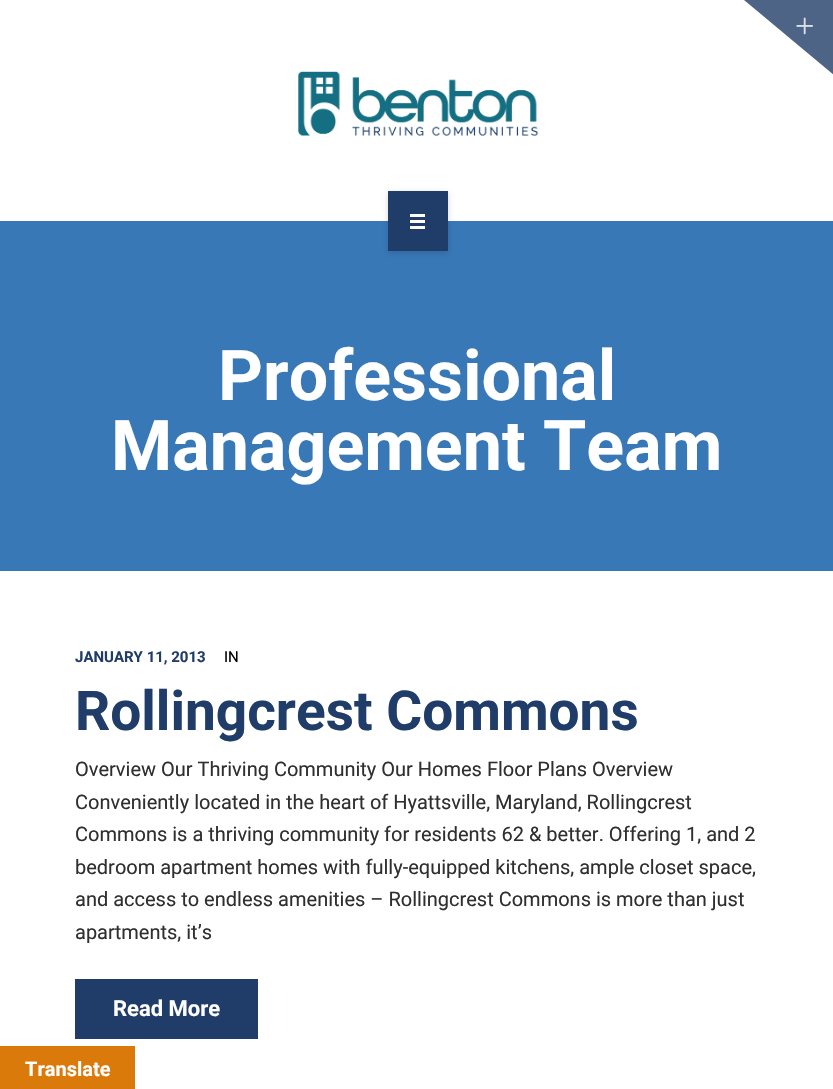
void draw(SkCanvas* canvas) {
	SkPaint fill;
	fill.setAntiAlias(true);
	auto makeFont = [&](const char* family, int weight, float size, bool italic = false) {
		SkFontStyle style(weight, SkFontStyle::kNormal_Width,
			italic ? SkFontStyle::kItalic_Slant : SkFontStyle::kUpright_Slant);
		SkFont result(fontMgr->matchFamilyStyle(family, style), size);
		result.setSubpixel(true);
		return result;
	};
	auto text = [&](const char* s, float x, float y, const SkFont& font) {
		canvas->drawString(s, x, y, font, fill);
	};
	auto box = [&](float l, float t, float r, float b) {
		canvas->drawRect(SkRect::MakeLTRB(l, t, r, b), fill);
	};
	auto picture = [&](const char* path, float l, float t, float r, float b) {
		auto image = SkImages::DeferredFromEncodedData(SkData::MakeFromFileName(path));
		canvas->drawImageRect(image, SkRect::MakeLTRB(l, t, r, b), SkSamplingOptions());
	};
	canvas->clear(0xFFFFFFFF);
	fill.setColor(0xFF4D6487);
	canvas->drawPath(SkPathBuilder().moveTo(744, 0).lineTo(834, 0).lineTo(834, 75).close().detach(), fill);
	picture("image0.png", 796, 17, 813, 35);
	picture("image1.png", 298, 71, 539, 136);
	fill.setColor(0xFF3878B7);
	box(0, 221, 833, 571);
	fill.setColor(0x26000000);
	fill.setMaskFilter(SkMaskFilter::MakeBlur(kNormal_SkBlurStyle, 3));
	canvas->drawRect(SkRect::MakeLTRB(388, 193, 448, 253), fill);
	fill.setMaskFilter(nullptr);
	fill.setColor(0xFF203D69);
	box(388, 191, 448, 251);
	fill.setColor(0xFFFFFFFF);
	box(410, 214, 425, 217);
	box(410, 220, 425, 223);
	box(410, 226, 425, 229);
	fill.setColor(0xFF203D69);
	box(75, 979, 258, 1039);
	fill.setColor(0xFFDA7A0B);
	box(0, 1046, 135, 1089);
	auto font1 = makeFont("Roboto", 700, 70);
	fill.setColor(0xFFFFFFFF);
	text("Professional", 218, 400, font1);
	text("Management Team", 111, 470, font1);
	auto font2 = makeFont("Roboto", 700, 15);
	fill.setColor(0xFF203D69);
	text("JANUARY 11, 2013", 75, 662, font2);
	auto font3 = makeFont("Roboto", 400, 15);
	fill.setColor(0xFF000000);
	text("IN", 224, 662, font3);
	auto font4 = makeFont("Roboto", 700, 55);
	fill.setColor(0xFF203D69);
	text("Rollingcrest Commons", 75, 730, font4);
	auto font5 = makeFont("Roboto", 400, 20);
	fill.setColor(0xFF302F30);
	text("Overview Our Thriving Community Our Homes Floor Plans Overview", 75, 776, font5);
	text("Conveniently located in the heart of Hyattsville, Maryland, Rollingcrest", 75, 809, font5);
	text("Commons is a thriving community for residents 62 & better. Offering 1, and 2", 75, 841, font5);
	text("bedroom apartment homes with fully-equipped kitchens, ample closet space,", 75, 874, font5);
	text("and access to endless amenities – Rollingcrest Commons is more than just", 75, 906, font5);
	text("apartments, it’s", 75, 939, font5);
	auto font6 = makeFont("Roboto", 700, 22);
	fill.setColor(0xFFFFFFFF);
	text("Read More", 113, 1016, font6);
	auto font7 = makeFont("Roboto", 700, 20);
	text("Translate", 25, 1076, font7);
}
